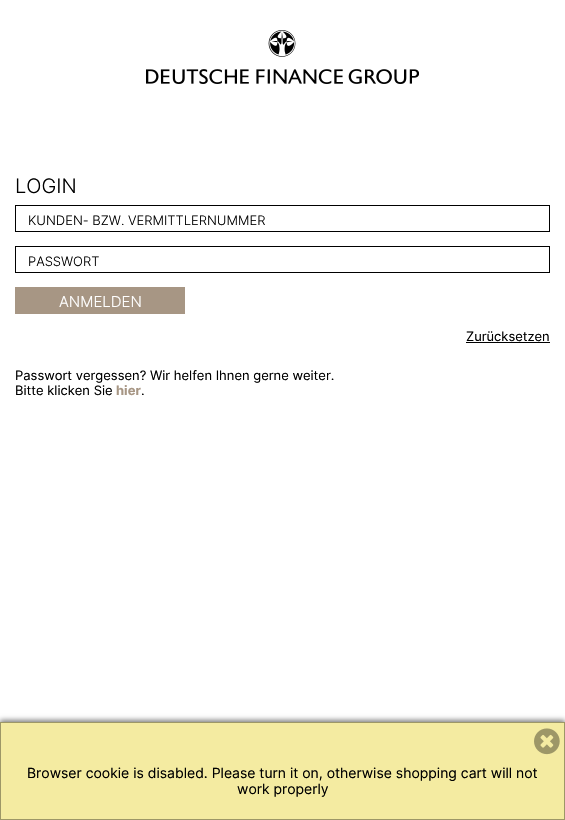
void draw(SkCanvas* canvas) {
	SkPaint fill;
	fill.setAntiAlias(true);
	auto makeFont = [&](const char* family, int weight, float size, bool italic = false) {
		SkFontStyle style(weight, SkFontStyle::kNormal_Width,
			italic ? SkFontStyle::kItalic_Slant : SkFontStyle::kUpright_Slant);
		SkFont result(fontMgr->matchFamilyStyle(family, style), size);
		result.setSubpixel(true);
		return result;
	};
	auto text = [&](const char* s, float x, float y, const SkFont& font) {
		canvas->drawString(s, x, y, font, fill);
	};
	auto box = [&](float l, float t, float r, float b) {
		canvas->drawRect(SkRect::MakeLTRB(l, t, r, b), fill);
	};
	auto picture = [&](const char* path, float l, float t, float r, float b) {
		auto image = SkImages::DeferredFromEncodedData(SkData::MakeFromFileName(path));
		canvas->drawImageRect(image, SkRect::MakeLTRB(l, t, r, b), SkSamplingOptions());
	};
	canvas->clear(0xFFFFFFFF);
	picture("image0.png", 146, 30, 419, 84);
	fill.setStyle(SkPaint::kStroke_Style);
	fill.setStrokeWidth(1);
	fill.setColor(0xFF000000);
	canvas->drawRect(SkRect::MakeLTRB(15.5f, 205.5f, 549.5f, 231.5f), fill);
	canvas->drawRect(SkRect::MakeLTRB(15.5f, 246.5f, 549.5f, 272.5f), fill);
	fill.setStyle(SkPaint::kFill_Style);
	fill.setColor(0xFFA79684);
	box(15, 287, 185, 314);
	fill.setColor(0xFF000000);
	box(466, 342, 550, 343);
	fill.setColor(0x80000000);
	fill.setMaskFilter(SkMaskFilter::MakeBlur(kNormal_SkBlurStyle, 2.5f));
	canvas->drawRect(SkRect::MakeLTRB(0, 720, 565, 818), fill);
	fill.setMaskFilter(nullptr);
	fill.setColor(0xFFF4EBA1);
	canvas->drawRect(SkRect::MakeLTRB(0.5f, 722.5f, 564.5f, 819.5f), fill);
	fill.setStyle(SkPaint::kStroke_Style);
	fill.setColor(0xFF9D9767);
	canvas->drawRect(SkRect::MakeLTRB(0.5f, 722.5f, 564.5f, 819.5f), fill);
	picture("image1.png", 534, 728, 560, 755);
	auto font1 = makeFont("Inter", 300, 20);
	fill.setStyle(SkPaint::kFill_Style);
	fill.setColor(0xFF000000);
	text("LOGIN", 15, 193, font1);
	auto font2 = makeFont("Inter", 300, 13);
	text("KUNDEN- BZW. VERMITTLERNUMMER", 28, 225, font2);
	text("PASSWORT", 28, 266, font2);
	auto font3 = makeFont("Inter", 300, 15);
	fill.setColor(0xFFFFFFFF);
	text("ANMELDEN", 59, 307, font3);
	auto font4 = makeFont("Inter", 400, 13);
	fill.setColor(0xFF000000);
	text("Zurücksetzen", 466, 341, font4);
	text("Passwort vergessen? Wir helfen Ihnen gerne weiter.", 15, 380, font4);
	text("Bitte klicken Sie", 15, 395, font4);
	auto font5 = makeFont("Inter", 700, 13);
	fill.setColor(0xFFA79684);
	text("hier", 116, 395, font5);
	fill.setColor(0xFF000000);
	text(".", 141, 395, font4);
	auto font6 = makeFont("Inter", 400, 14);
	text("Browser cookie is disabled. Please turn it on, otherwise shopping cart will not", 27, 778, font6);
	text("work properly", 237, 794, font6);
}
